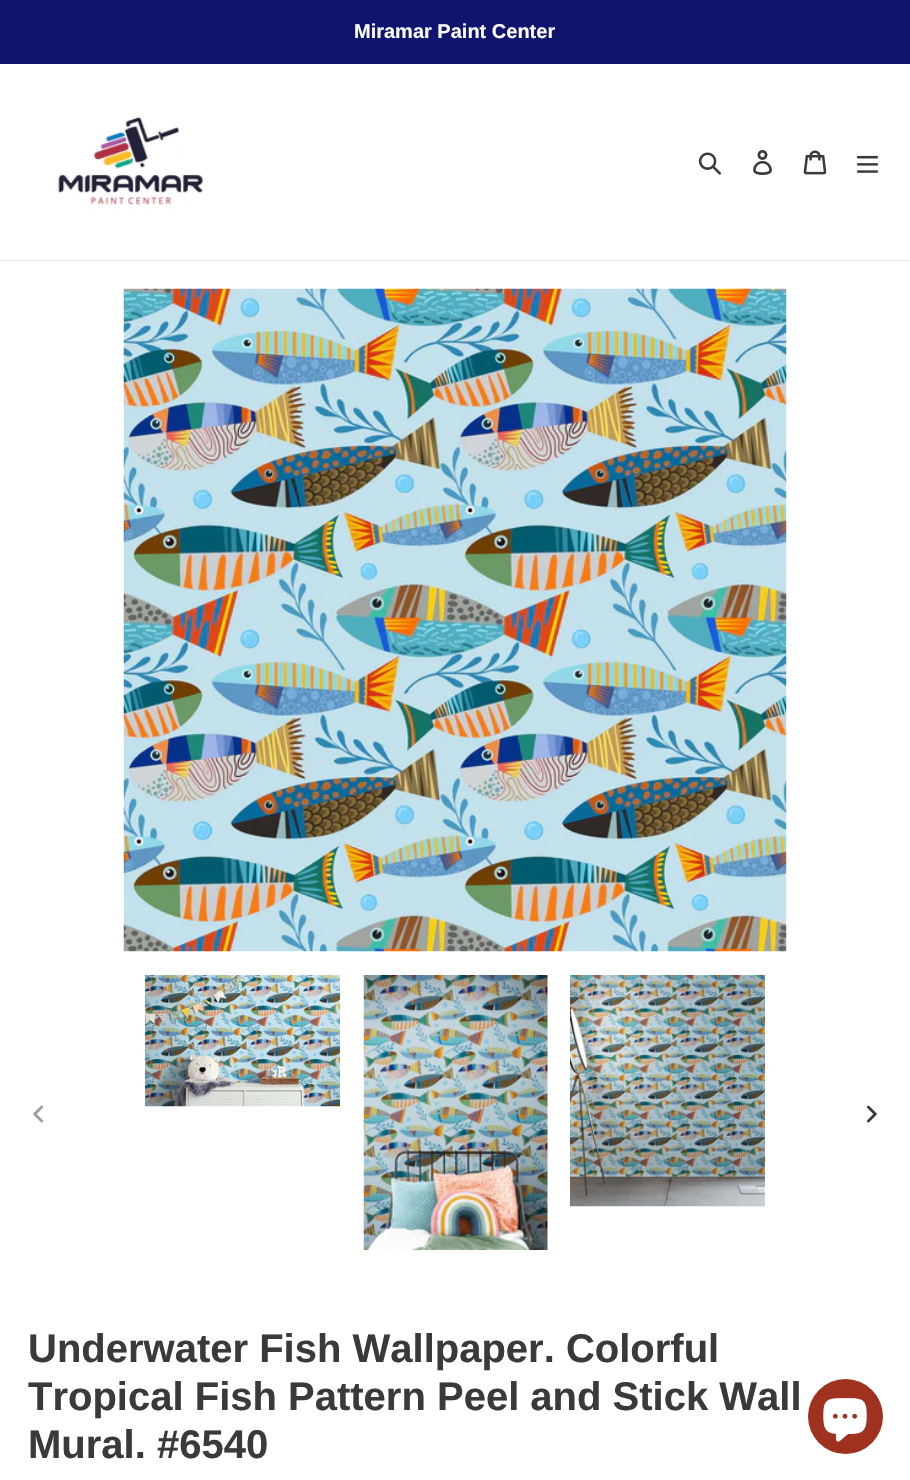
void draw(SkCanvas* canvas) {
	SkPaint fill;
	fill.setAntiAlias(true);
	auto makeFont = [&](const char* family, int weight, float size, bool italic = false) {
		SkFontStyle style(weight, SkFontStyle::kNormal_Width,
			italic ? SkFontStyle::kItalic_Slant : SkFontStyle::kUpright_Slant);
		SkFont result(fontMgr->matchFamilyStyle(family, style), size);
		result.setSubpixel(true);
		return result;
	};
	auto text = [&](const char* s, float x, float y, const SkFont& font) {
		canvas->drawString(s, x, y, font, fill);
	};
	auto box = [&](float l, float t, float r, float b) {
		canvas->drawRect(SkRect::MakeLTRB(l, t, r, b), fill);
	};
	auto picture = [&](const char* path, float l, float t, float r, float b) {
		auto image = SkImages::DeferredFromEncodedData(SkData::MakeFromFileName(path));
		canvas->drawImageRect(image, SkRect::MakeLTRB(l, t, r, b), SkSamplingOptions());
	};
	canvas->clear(0xFFFFFFFF);
	fill.setColor(0xFF0F146E);
	box(0, 0, 910, 64);
	fill.setColor(0xFFEBEBEB);
	box(0, 260, 910, 261);
	picture("image0.png", 55, 116, 206, 210);
	picture("image1.png", 698, 152, 721, 175);
	picture("image2.png", 753, 150, 772, 175);
	picture("image3.png", 803, 150, 827, 175);
	picture("image4.png", 856, 155, 879, 173);
	picture("image5.png", 123, 288, 787, 952);
	picture("image6.png", 33, 1105, 43, 1123);
	picture("image7.png", 145, 975, 340, 1107);
	picture("image8.png", 363, 975, 548, 1250);
	picture("image9.png", 570, 975, 765, 1207);
	picture("image10.png", 867, 1105, 877, 1123);
	fill.setColor(0xFF9E321F);
	canvas->drawCircle(845.5f, 1416.5f, 37.5f, fill);
	picture("image11.png", 823, 1398, 867, 1442);
	auto font1 = makeFont("Liberation Sans", 700, 20);
	fill.setColor(0xFFFFFFFF);
	text("Miramar Paint Center", 354, 38, font1);
	auto font2 = makeFont("Liberation Sans", 700, 40);
	fill.setColor(0xFF3A3A3A);
	text("Underwater Fish Wallpaper. Colorful", 28, 1362, font2);
	text("Tropical Fish Pattern Peel and Stick Wall", 28, 1410, font2);
	text("Mural. #6540", 28, 1458, font2);
}
